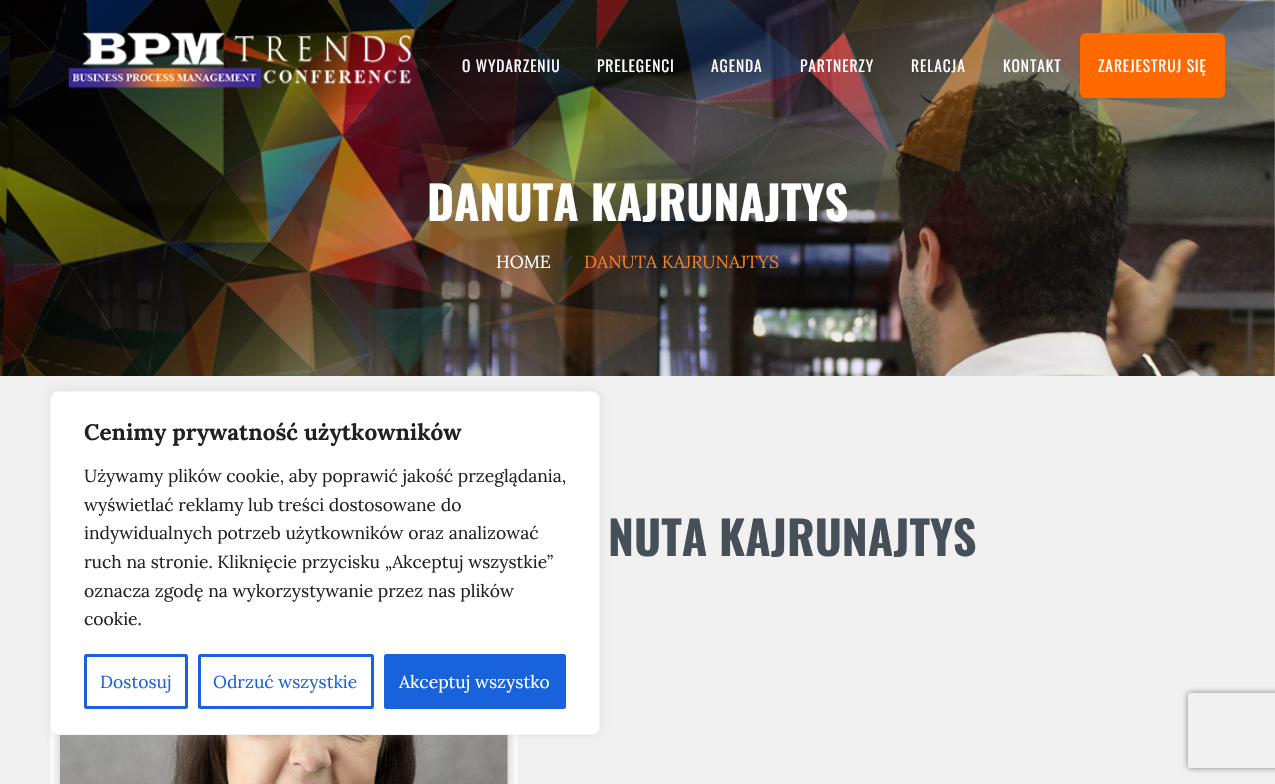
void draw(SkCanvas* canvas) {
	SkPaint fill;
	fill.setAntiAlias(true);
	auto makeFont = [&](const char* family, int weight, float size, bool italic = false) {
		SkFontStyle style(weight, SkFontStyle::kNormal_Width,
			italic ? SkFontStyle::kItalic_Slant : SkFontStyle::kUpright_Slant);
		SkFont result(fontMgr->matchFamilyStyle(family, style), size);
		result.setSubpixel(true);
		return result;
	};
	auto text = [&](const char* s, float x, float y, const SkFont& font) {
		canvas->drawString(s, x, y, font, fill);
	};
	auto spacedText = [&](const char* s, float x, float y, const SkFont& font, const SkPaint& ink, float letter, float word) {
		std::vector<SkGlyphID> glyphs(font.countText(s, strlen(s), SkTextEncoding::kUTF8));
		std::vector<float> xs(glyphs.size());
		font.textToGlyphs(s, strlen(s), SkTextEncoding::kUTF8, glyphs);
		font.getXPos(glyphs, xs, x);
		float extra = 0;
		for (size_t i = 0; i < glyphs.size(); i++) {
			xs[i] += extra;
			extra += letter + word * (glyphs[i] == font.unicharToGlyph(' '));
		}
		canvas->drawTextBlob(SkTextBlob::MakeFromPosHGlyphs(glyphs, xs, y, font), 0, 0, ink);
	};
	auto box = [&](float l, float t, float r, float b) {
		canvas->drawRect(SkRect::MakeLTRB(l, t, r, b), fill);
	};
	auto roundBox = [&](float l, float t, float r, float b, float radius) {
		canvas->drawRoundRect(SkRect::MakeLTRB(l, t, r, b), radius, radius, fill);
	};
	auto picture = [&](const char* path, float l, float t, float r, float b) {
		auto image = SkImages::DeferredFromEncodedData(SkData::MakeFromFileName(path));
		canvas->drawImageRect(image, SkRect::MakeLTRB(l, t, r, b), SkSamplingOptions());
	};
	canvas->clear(0xFFFFFFFF);
	picture("image1.png", 0, 0, 1275, 376);
	picture("image2.png", 0, 0, 1275, 376);
	fill.setColor(0xFFF1F1F1);
	box(0, 376, 1275, 784);
	fill.setColor(0xFFFFFFFF);
	box(50, 727, 518, 784);
	fill.setColor(0x40000000);
	fill.setMaskFilter(SkMaskFilter::MakeBlur(kNormal_SkBlurStyle, 6));
	canvas->drawRoundRect(SkRect::MakeLTRB(60, 511, 508, 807), 5, 5, fill);
	fill.setMaskFilter(nullptr);
	picture("image3.png", 60, 735, 508, 784);
	fill.setColor(0x4DACABAB);
	fill.setMaskFilter(SkMaskFilter::MakeBlur(kNormal_SkBlurStyle, 6));
	canvas->drawRoundRect(SkRect::MakeLTRB(50, 390, 600, 734), 8, 8, fill);
	fill.setMaskFilter(nullptr);
	fill.setColor(0xFFFFFFFF);
	canvas->drawRoundRect(SkRect::MakeLTRB(50.5f, 391.5f, 599.5f, 734.5f), 7.5f, 7.5f, fill);
	fill.setStyle(SkPaint::kStroke_Style);
	fill.setStrokeWidth(1);
	fill.setColor(0xFFF4F4F4);
	canvas->drawRoundRect(SkRect::MakeLTRB(50.5f, 391.5f, 599.5f, 734.5f), 7.5f, 7.5f, fill);
	fill.setStrokeWidth(3);
	fill.setColor(0xFF1863DC);
	canvas->drawRoundRect(SkRect::MakeLTRB(85.5f, 655.5f, 186.5f, 707.5f), 1, 1, fill);
	canvas->drawRoundRect(SkRect::MakeLTRB(199.5f, 655.5f, 372.5f, 707.5f), 1, 1, fill);
	fill.setStyle(SkPaint::kFill_Style);
	canvas->drawRoundRect(SkRect::MakeLTRB(385.5f, 655.5f, 564.5f, 707.5f), 1, 1, fill);
	fill.setStyle(SkPaint::kStroke_Style);
	canvas->drawRoundRect(SkRect::MakeLTRB(385.5f, 655.5f, 564.5f, 707.5f), 1, 1, fill);
	picture("image0.png", 68, 32, 412, 89);
	fill.setStyle(SkPaint::kFill_Style);
	fill.setColor(0xFFFF6900);
	roundBox(1080, 33, 1225, 98, 6);
	canvas->save();
	canvas->clipPath(SkPathBuilder(SkPathFillType::kEvenOdd).moveTo(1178, 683).lineTo(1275, 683).lineTo(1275, 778).lineTo(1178, 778).close().moveTo(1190.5f, 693).lineTo(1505.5f, 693).cubicTo(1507, 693, 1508, 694, 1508, 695.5f).lineTo(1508, 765.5f).cubicTo(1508, 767, 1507, 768, 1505.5f, 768).lineTo(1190.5f, 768).cubicTo(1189, 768, 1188, 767, 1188, 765.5f).lineTo(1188, 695.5f).cubicTo(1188, 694, 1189, 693, 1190.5f, 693).close().detach(), true);
	fill.setColor(0xFF808080);
	fill.setMaskFilter(SkMaskFilter::MakeBlur(kNormal_SkBlurStyle, 3));
	canvas->drawRoundRect(SkRect::MakeLTRB(1188, 693, 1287, 768), 2.5f, 2.5f, fill);
	fill.setMaskFilter(nullptr);
	canvas->restore();
	auto font1 = makeFont("Lora", 700, 22.5f);
	fill.setColor(0xFF212121);
	text("Cenimy prywatność użytkowników", 84, 440, font1);
	auto font2 = makeFont("Lora", 400, 17.5f);
	text("Używamy plików cookie, aby poprawić jakość przeglądania,", 84, 482, font2);
	text("wyświetlać reklamy lub treści dostosowane do", 84, 511, font2);
	text("indywidualnych potrzeb użytkowników oraz analizować", 84, 539, font2);
	text("ruch na stronie. Kliknięcie przycisku „Akceptuj wszystkie”", 84, 568, font2);
	text("oznacza zgodę na wykorzystywanie przez nas plików", 84, 597, font2);
	text("cookie.", 84, 625, font2);
	fill.setColor(0xFF1863DC);
	text("Dostosuj", 100, 688, font2);
	text("Odrzuć wszystkie", 213, 688, font2);
	fill.setColor(0xFFFFFFFF);
	text("Akceptuj wszystko", 399, 688, font2);
	auto font3 = makeFont("Oswald", 400, 15.5f);
	spacedText("O WYDARZENIU", 462, 72, font3, fill, 0.9f, 0);
	spacedText("PRELEGENCI", 597, 72, font3, fill, 0.9f, 0);
	spacedText("AGENDA", 711, 72, font3, fill, 0.9f, 0);
	spacedText("PARTNERZY", 800, 72, font3, fill, 0.9f, 0);
	spacedText("RELACJA", 911, 72, font3, fill, 0.9f, 0);
	spacedText("KONTAKT", 1003, 72, font3, fill, 0.9f, 0);
	spacedText("ZAREJESTRUJ SIĘ", 1098, 72, font3, fill, 0.9f, 0);
	auto font4 = makeFont("Oswald", 700, 46.25f);
	text("DANUTA KAJRUNAJTYS", 427, 221, font4);
	auto font5 = makeFont("Lora", 400, 17.6f);
	text("HOME", 496, 268, font5);
	fill.setColor(0xFF392C71);
	text("/", 561, 268, font5);
	fill.setColor(0xFFEF7F22);
	text("DANUTA KAJRUNAJTYS", 584, 268, font5);
	fill.setColor(0xFF474F58);
	text("NUTA KAJRUNAJTYS", 608, 556, font4);
}
